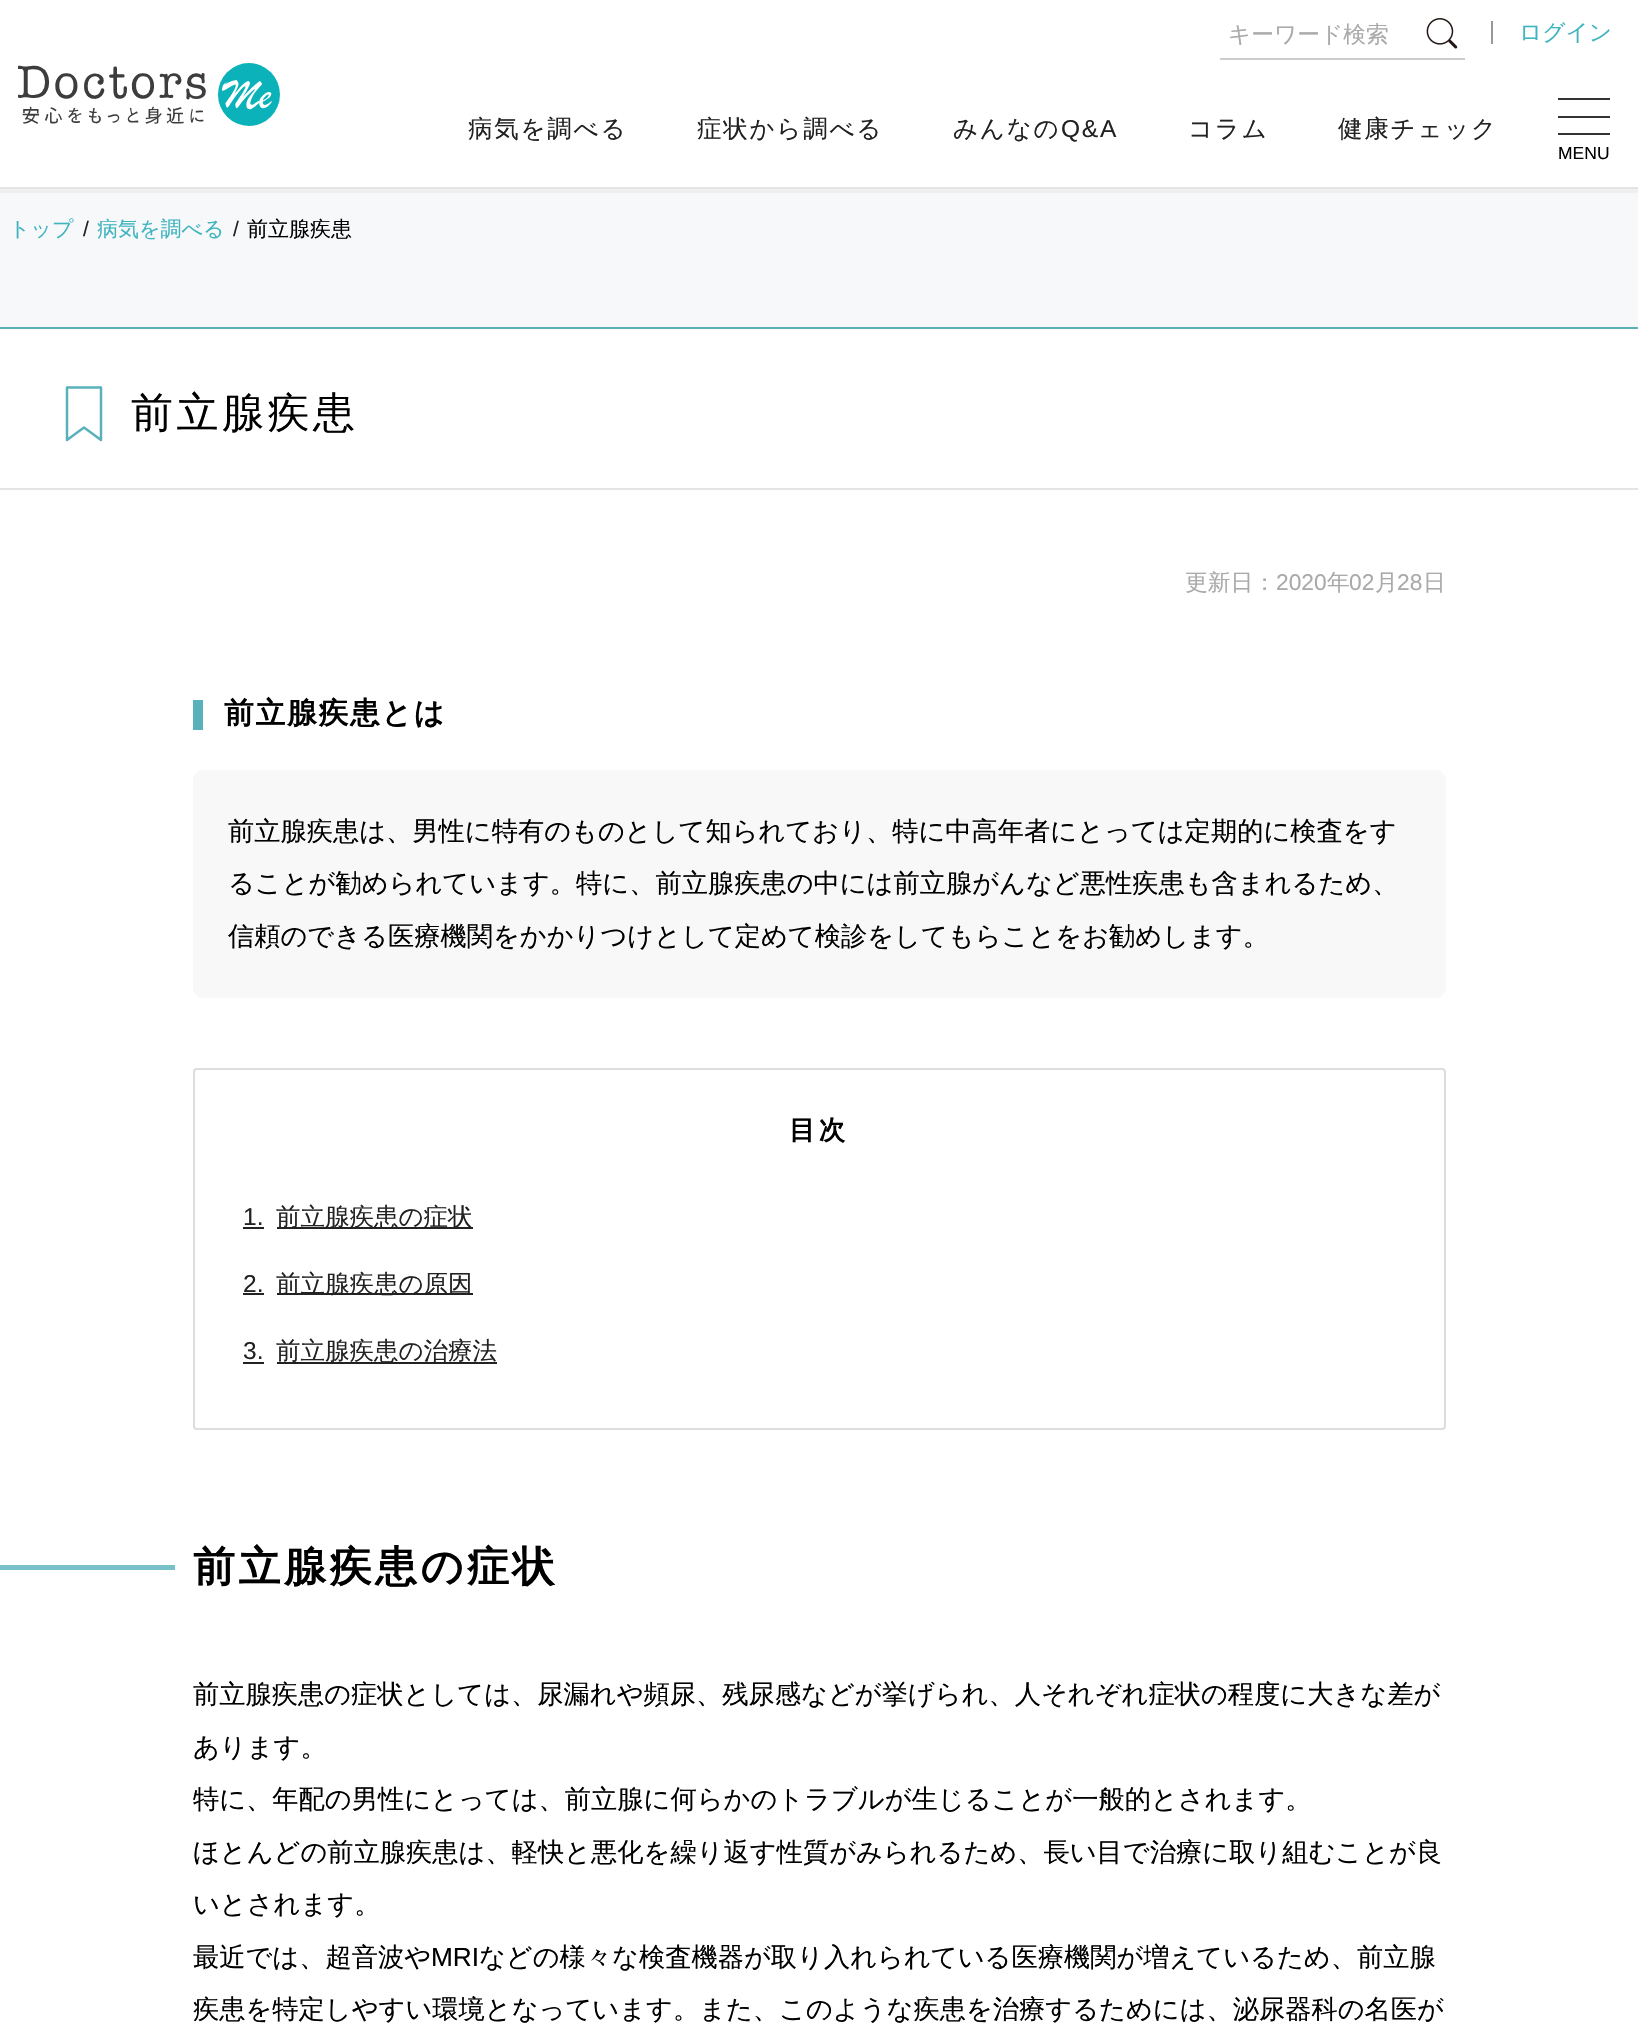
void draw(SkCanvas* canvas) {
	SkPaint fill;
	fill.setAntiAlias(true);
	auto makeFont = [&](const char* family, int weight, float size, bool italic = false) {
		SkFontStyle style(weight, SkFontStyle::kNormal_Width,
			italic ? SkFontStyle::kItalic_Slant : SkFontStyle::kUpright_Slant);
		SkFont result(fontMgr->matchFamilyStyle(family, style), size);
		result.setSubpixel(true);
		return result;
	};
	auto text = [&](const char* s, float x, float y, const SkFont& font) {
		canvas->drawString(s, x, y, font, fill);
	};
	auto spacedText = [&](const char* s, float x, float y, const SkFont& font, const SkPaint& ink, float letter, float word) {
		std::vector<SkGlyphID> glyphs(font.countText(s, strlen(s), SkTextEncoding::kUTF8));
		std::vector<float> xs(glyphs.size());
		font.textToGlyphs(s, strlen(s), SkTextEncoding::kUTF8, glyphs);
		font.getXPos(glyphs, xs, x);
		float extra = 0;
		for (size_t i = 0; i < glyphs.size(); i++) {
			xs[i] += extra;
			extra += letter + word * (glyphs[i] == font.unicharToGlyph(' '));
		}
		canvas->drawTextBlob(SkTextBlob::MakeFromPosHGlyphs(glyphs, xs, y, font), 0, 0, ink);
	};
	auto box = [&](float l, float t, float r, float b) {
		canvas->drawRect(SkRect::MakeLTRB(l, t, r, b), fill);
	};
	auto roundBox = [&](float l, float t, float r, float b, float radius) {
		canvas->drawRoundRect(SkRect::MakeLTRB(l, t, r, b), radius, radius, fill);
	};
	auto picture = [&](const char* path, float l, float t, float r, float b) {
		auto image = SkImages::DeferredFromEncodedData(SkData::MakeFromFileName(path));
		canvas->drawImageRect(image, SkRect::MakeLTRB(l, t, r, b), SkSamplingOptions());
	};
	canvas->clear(0xFFF6F8FA);
	fill.setColor(0xFFFFFFFF);
	box(0, 0, 1638, 187);
	fill.setColor(0xFFCCCCCC);
	box(1220, 58, 1465, 60);
	picture("image0.png", 1426, 18, 1458, 49);
	fill.setColor(0xFF999999);
	box(1491, 21, 1493, 44);
	picture("image1.png", 18, 63, 280, 126);
	fill.setColor(0xFF333333);
	box(1558, 98, 1610, 100);
	box(1558, 116, 1610, 118);
	box(1558, 133, 1610, 135);
	fill.setColor(0xFFE4E4E4);
	box(0, 187, 1638, 189);
	fill.setColor(0xFFEDEFF0);
	box(0, 189, 1638, 193);
	fill.setColor(0xFFFFFFFF);
	box(0, 329, 1638, 2030);
	fill.setColor(0xFF58B1BB);
	box(0, 327, 1638, 329);
	fill.setColor(0xFFE4E4E4);
	box(0, 488, 1638, 490);
	fill.setStyle(SkPaint::kStroke_Style);
	fill.setStrokeWidth(2.5f);
	fill.setStrokeCap(SkPaint::kRound_Cap);
	fill.setStrokeJoin(SkPaint::kRound_Join);
	fill.setColor(0xFF58B1BB);
	canvas->drawPath(SkPathBuilder().moveTo(101, 440).lineTo(84, 427.5f).lineTo(67, 440).lineTo(67, 387.5f).lineTo(101, 387.5f).close().detach(), fill);
	fill.setStyle(SkPaint::kFill_Style);
	box(193, 700, 203, 730);
	fill.setColor(0xFFF8F8F8);
	roundBox(193, 770, 1446, 998, 11);
	fill.setStyle(SkPaint::kStroke_Style);
	fill.setStrokeWidth(2);
	fill.setStrokeCap(SkPaint::kButt_Cap);
	fill.setStrokeJoin(SkPaint::kMiter_Join);
	fill.setColor(0xFFDDDDDD);
	canvas->drawRoundRect(SkRect::MakeLTRB(194, 1069, 1445, 1429), 3, 3, fill);
	fill.setStyle(SkPaint::kFill_Style);
	fill.setColor(0xFF222222);
	box(243, 1227, 264, 1229);
	box(277, 1227, 473, 1229);
	box(243, 1293, 264, 1295);
	box(277, 1293, 473, 1295);
	box(243, 1362, 264, 1364);
	box(277, 1362, 497, 1364);
	fill.setColor(0xFF79C1C9);
	box(0, 1565, 175, 1570);
	auto font1 = makeFont("WenQuanYi Zen Hei", 500, 22.75f);
	fill.setColor(0xFFAAAAAA);
	text("キーワード検索", 1228, 42, font1);
	fill.setColor(0xFF40B4BF);
	text("ログイン", 1519, 40, font1);
	auto font2 = makeFont("WenQuanYi Zen Hei", 500, 24.5f);
	fill.setColor(0xFF222222);
	spacedText("病気を調べる", 468, 137, font2, fill, 1.75f, 0);
	spacedText("症状から調べる", 697, 137, font2, fill, 1.75f, 0);
	spacedText("みんなの", 953, 137, font2, fill, 1.75f, 0);
	auto font3 = makeFont("Liberation Sans", 400, 24.5f);
	spacedText("Q&A", 1061, 137, font3, fill, 1.75f, 0);
	spacedText("コラム", 1188, 137, font2, fill, 1.75f, 0);
	spacedText("健康チェック", 1338, 137, font2, fill, 1.75f, 0);
	auto font4 = makeFont("Liberation Sans", 400, 17.5f);
	fill.setColor(0xFF000000);
	text("MENU", 1558, 159, font4);
	auto font5 = makeFont("WenQuanYi Zen Hei", 500, 21);
	fill.setColor(0xFF40B4BF);
	text("トップ", 9, 236, font5);
	auto font6 = makeFont("Liberation Sans", 400, 21);
	fill.setColor(0xFF222222);
	spacedText("/", 83, 236, font6, fill, -1, 0);
	fill.setColor(0xFF40B4BF);
	text("病気を調べる", 97, 236, font5);
	fill.setColor(0xFF222222);
	spacedText("/", 233, 236, font6, fill, -1, 0);
	fill.setColor(0xFF000000);
	text("前立腺疾患", 247, 236, font5);
	auto font7 = makeFont("WenQuanYi Zen Hei", 500, 42);
	spacedText("前立腺疾患", 131, 427, font7, fill, 3.5f, 0);
	fill.setColor(0xFFAAAAAA);
	text("更新日：", 1185, 590, font1);
	auto font8 = makeFont("Liberation Sans", 400, 22.75f);
	text("2020", 1276, 590, font8);
	text("年", 1327, 590, font1);
	text("02", 1349, 590, font8);
	text("月", 1375, 590, font1);
	text("28", 1397, 590, font8);
	text("日", 1423, 590, font1);
	auto font9 = makeFont("WenQuanYi Zen Hei", 700, 29.75f);
	fill.setColor(0xFF000000);
	spacedText("前立腺疾患とは", 224, 723, font9, fill, 1.75f, 0);
	auto font10 = makeFont("WenQuanYi Zen Hei", 500, 26.25f);
	text("前立腺疾患は、男性に特有のものとして知られており、特に中高年者にとっては定期的に検査をす", 228, 840, font10);
	text("ることが勧められています。特に、前立腺疾患の中には前立腺がんなど悪性疾患も含まれるため、", 228, 892, font10);
	text("信頼のできる医療機関をかかりつけとして定めて検診をしてもらことをお勧めします。", 228, 945, font10);
	auto font11 = makeFont("WenQuanYi Zen Hei", 700, 26.25f);
	spacedText("目次", 789, 1139, font11, fill, 3.5f, 0);
	fill.setColor(0xFF222222);
	text("1.", 243, 1225, font3);
	text("前立腺疾患の症状", 276, 1225, font2);
	text("2.", 243, 1292, font3);
	text("前立腺疾患の原因", 276, 1292, font2);
	text("3.", 243, 1359, font3);
	text("前立腺疾患の治療法", 276, 1359, font2);
	auto font12 = makeFont("WenQuanYi Zen Hei", 700, 42);
	fill.setColor(0xFF000000);
	spacedText("前立腺疾患の症状", 193, 1581, font12, fill, 3.5f, 0);
	text("前立腺疾患の症状としては、尿漏れや頻尿、残尿感などが挙げられ、人それぞれ症状の程度に大きな差が", 193, 1703, font10);
	text("あります。", 193, 1756, font10);
	text("特に、年配の男性にとっては、前立腺に何らかのトラブルが生じることが一般的とされます。", 193, 1808, font10);
	text("ほとんどの前立腺疾患は、軽快と悪化を繰り返す性質がみられるため、長い目で治療に取り組むことが良", 193, 1861, font10);
	text("いとされます。", 193, 1913, font10);
	text("最近では、超音波や", 193, 1966, font10);
	auto font13 = makeFont("Liberation Sans", 400, 26.25f);
	text("MRI", 431, 1966, font13);
	text("などの様々な検査機器が取り入れられている医療機関が増えているため、前立腺", 479, 1966, font10);
	text("疾患を特定しやすい環境となっています。また、このような疾患を治療するためには、泌尿器科の名医が", 193, 2018, font10);
}
